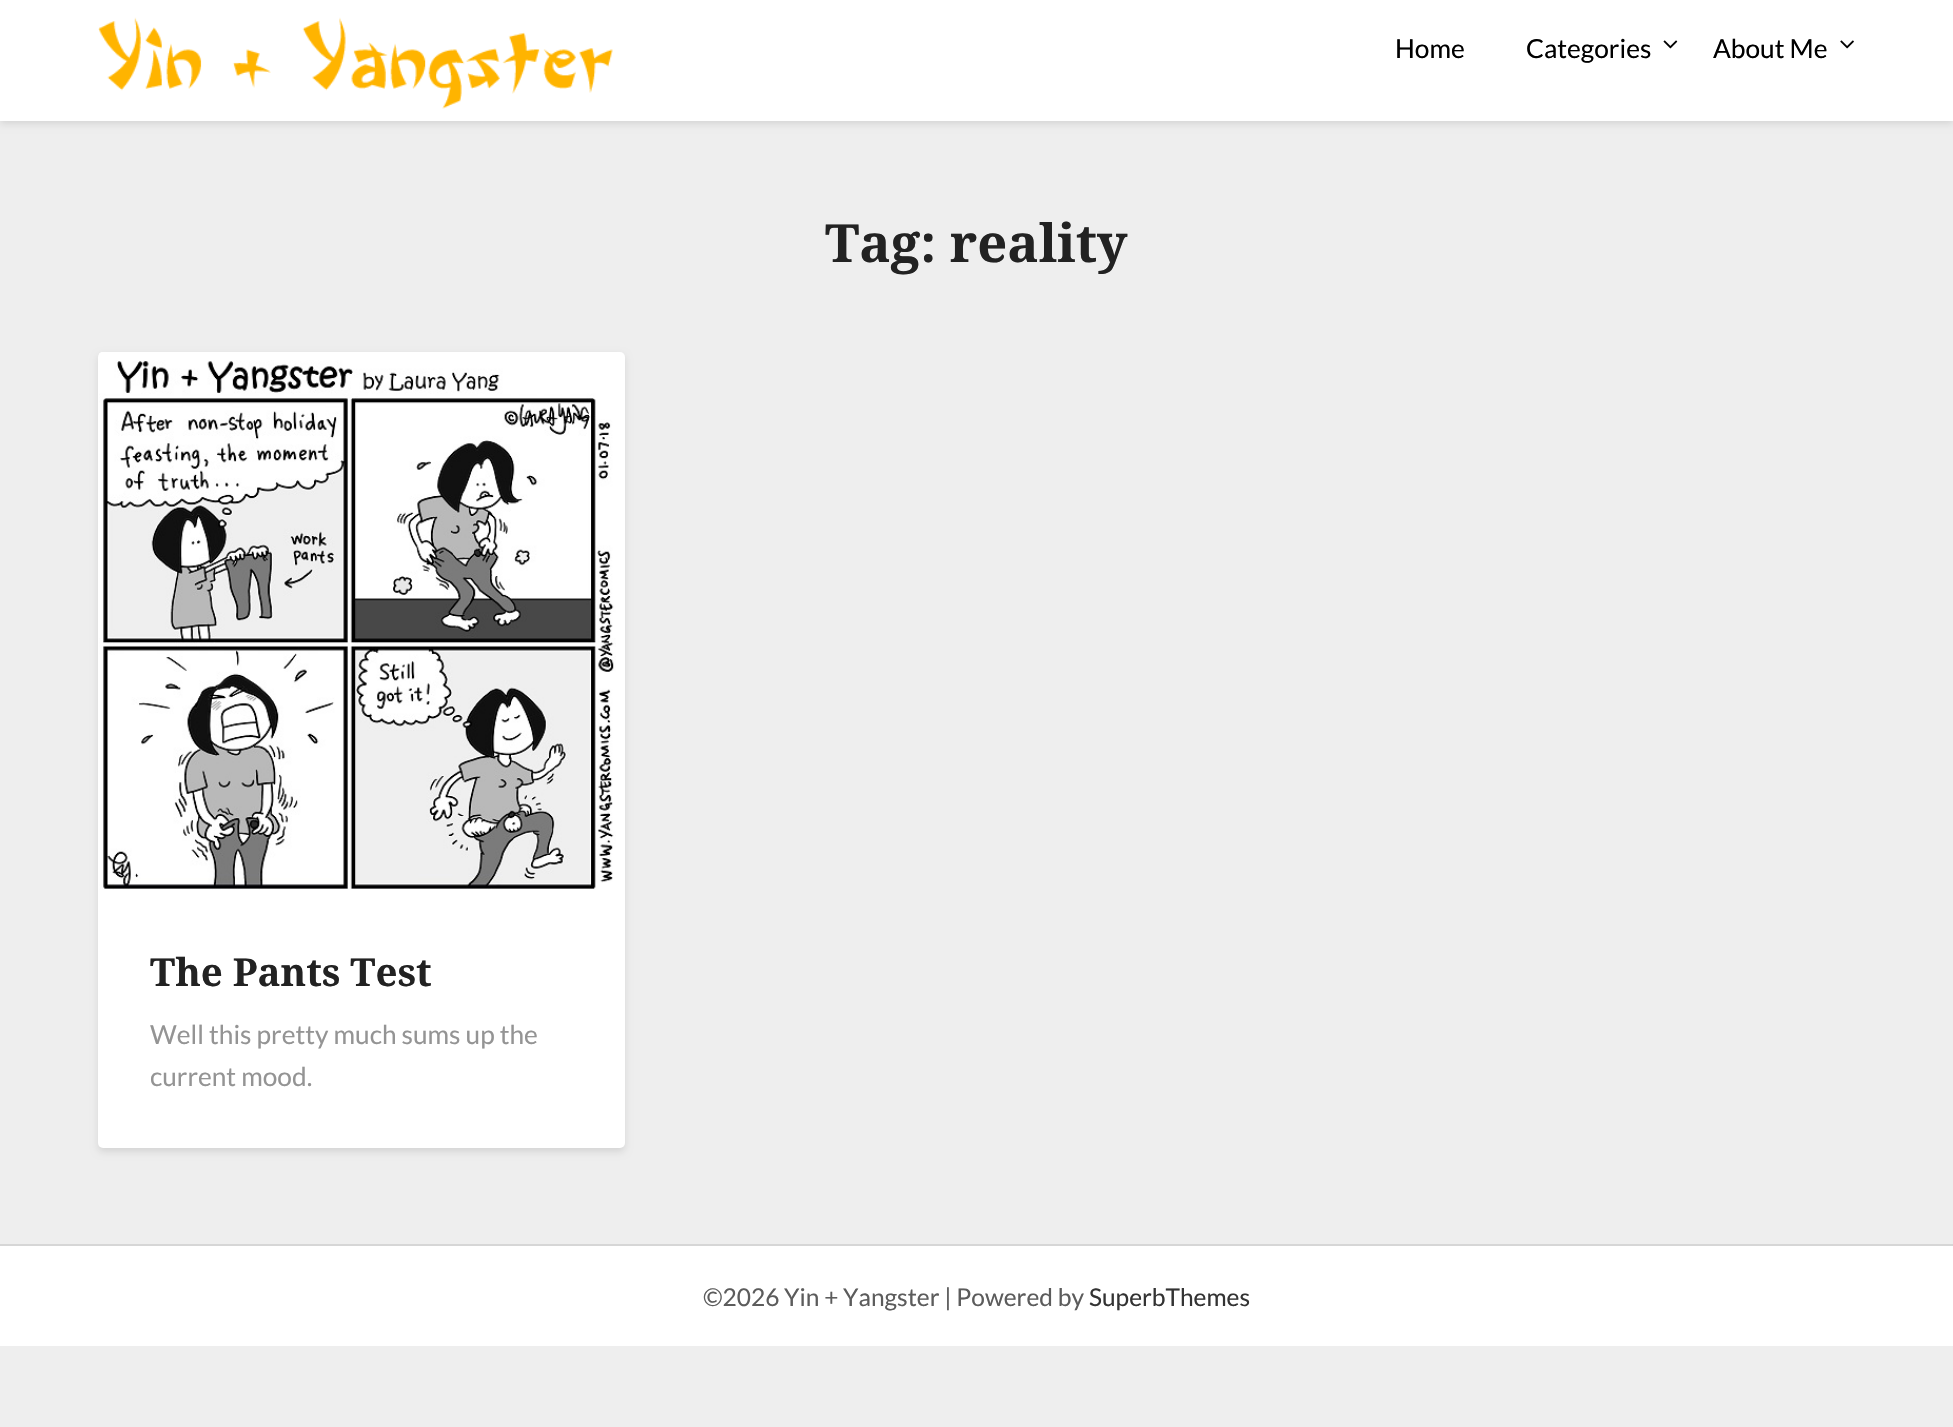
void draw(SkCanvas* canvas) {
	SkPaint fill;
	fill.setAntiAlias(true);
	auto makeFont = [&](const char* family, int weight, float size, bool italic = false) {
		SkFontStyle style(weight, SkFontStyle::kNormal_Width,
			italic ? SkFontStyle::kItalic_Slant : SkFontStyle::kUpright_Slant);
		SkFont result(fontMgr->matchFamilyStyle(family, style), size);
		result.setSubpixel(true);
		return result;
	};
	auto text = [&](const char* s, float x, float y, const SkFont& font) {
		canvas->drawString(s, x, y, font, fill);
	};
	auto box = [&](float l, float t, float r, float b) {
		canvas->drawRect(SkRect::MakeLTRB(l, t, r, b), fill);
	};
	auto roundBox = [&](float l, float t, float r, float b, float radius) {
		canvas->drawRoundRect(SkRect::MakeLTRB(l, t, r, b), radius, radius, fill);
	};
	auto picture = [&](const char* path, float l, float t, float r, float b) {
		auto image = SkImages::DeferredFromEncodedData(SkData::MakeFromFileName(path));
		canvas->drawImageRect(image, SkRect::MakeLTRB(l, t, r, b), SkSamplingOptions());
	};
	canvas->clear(0xFFEEEEEE);
	fill.setColor(0x1A000000);
	fill.setMaskFilter(SkMaskFilter::MakeBlur(kNormal_SkBlurStyle, 3.5f));
	canvas->drawRect(SkRect::MakeLTRB(0, 4, 1953, 124), fill);
	fill.setMaskFilter(nullptr);
	fill.setColor(0xFFFFFFFF);
	box(0, 0, 1953, 121);
	picture("image0.png", 98, 17, 613, 109);
	picture("image1.png", 1663, 40, 1678, 49);
	picture("image2.png", 1840, 40, 1854, 49);
	fill.setColor(0x1A000000);
	fill.setMaskFilter(SkMaskFilter::MakeBlur(kNormal_SkBlurStyle, 3.5f));
	canvas->drawRoundRect(SkRect::MakeLTRB(98, 355, 625, 1152), 5, 5, fill);
	fill.setMaskFilter(nullptr);
	fill.setColor(0xFFFFFFFF);
	roundBox(98, 352, 625, 1148, 5);
	picture("image3.png", 99, 352, 616, 890);
	box(0, 1246, 1953, 1346);
	fill.setColor(0xFFD6D6D6);
	box(0, 1244, 1953, 1246);
	auto font1 = makeFont("Lato", 400, 26.25f);
	fill.setColor(0xFF000000);
	text("Home", 1395, 58, font1);
	text("Categories", 1526, 58, font1);
	text("About Me", 1713, 58, font1);
	auto font2 = makeFont("Noto Serif", 700, 52.5f);
	fill.setColor(0xFF222222);
	text("Tag: reality", 825, 262, font2);
	auto font3 = makeFont("Noto Serif", 700, 38.5f);
	text("The Pants Test", 150, 986, font3);
	fill.setColor(0xFF949494);
	text("Well this pretty much sums up the", 150, 1044, font1);
	text("current mood.", 150, 1086, font1);
	auto font4 = makeFont("Lato", 400, 24.5f);
	fill.setColor(0xFF5C5C5C);
	text("©2026 Yin + Yangster | Powered by", 703, 1306, font4);
	fill.setColor(0xFF333333);
	text("SuperbThemes", 1089, 1306, font4);
}
